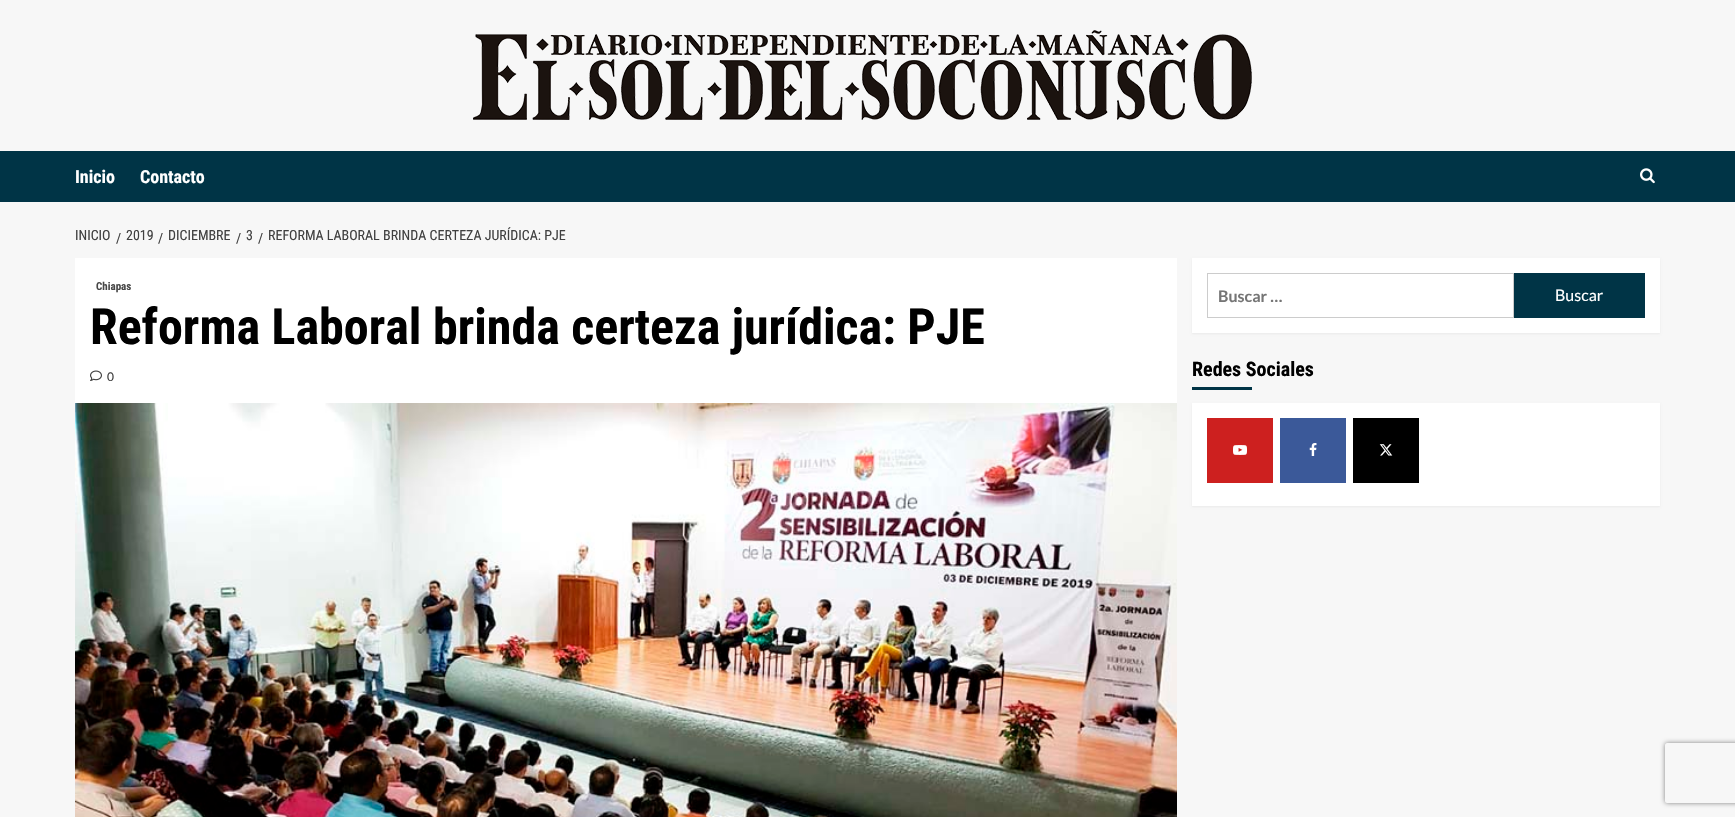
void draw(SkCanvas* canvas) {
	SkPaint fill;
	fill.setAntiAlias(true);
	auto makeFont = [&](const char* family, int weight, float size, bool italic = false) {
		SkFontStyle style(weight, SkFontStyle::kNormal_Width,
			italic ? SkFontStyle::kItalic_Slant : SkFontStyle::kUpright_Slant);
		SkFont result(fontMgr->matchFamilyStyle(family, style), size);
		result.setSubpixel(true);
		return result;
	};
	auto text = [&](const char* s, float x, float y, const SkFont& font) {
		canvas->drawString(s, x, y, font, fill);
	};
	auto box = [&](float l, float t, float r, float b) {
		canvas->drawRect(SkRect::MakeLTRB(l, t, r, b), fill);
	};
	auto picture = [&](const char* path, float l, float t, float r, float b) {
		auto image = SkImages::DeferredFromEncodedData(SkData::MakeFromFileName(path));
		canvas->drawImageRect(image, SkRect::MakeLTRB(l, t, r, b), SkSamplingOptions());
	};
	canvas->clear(0xFFF7F7F7);
	picture("image0.png", 473, 30, 1252, 120);
	fill.setColor(0xFF003446);
	box(0, 151, 1735, 202);
	picture("image1.png", 1640, 168, 1655, 184);
	fill.setColor(0xFFFFFFFF);
	box(75, 258, 1177, 403);
	picture("image2.png", 90, 370, 102, 381);
	picture("image3.png", 75, 403, 1177, 817);
	fill.setColor(0x0D000000);
	fill.setMaskFilter(SkMaskFilter::MakeBlur(kNormal_SkBlurStyle, 1));
	canvas->drawRect(SkRect::MakeLTRB(1192, 259, 1660, 334), fill);
	fill.setMaskFilter(nullptr);
	fill.setColor(0xFFFFFFFF);
	box(1192, 258, 1660, 333);
	fill.setStyle(SkPaint::kStroke_Style);
	fill.setStrokeWidth(1);
	fill.setColor(0xFFCCCCCC);
	canvas->drawRect(SkRect::MakeLTRB(1207.5f, 273.5f, 1513.5f, 317.5f), fill);
	fill.setStyle(SkPaint::kFill_Style);
	fill.setColor(0xFF003446);
	box(1514, 273, 1645, 318);
	box(1192, 387, 1252, 390);
	fill.setColor(0x0D000000);
	fill.setMaskFilter(SkMaskFilter::MakeBlur(kNormal_SkBlurStyle, 1));
	canvas->drawRect(SkRect::MakeLTRB(1192, 404, 1660, 507), fill);
	fill.setMaskFilter(nullptr);
	fill.setColor(0xFFFFFFFF);
	box(1192, 403, 1660, 506);
	fill.setColor(0xFFCD201F);
	box(1207, 418, 1273, 483);
	picture("image4.png", 1233, 445, 1247, 455);
	fill.setColor(0xFF3B5999);
	box(1280, 418, 1346, 483);
	picture("image5.png", 1309, 443, 1317, 456);
	fill.setColor(0xFF000000);
	box(1353, 418, 1419, 483);
	picture("image6.png", 1379, 444, 1393, 456);
	canvas->save();
	canvas->clipPath(SkPathBuilder(SkPathFillType::kEvenOdd).moveTo(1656, 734).lineTo(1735, 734).lineTo(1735, 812).lineTo(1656, 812).close().moveTo(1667, 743).lineTo(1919, 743).cubicTo(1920, 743, 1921, 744, 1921, 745).lineTo(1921, 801).cubicTo(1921, 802, 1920, 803, 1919, 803).lineTo(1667, 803).cubicTo(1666, 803, 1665, 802, 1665, 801).lineTo(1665, 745).cubicTo(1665, 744, 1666, 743, 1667, 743).close().detach(), true);
	fill.setColor(0xFF808080);
	fill.setMaskFilter(SkMaskFilter::MakeBlur(kNormal_SkBlurStyle, 2.5f));
	canvas->drawRoundRect(SkRect::MakeLTRB(1665, 743, 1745, 803), 2, 2, fill);
	fill.setMaskFilter(nullptr);
	canvas->restore();
	auto font1 = makeFont("Roboto Condensed", 700, 18);
	fill.setColor(0xFFFFFFFF);
	text("Inicio", 75, 183, font1);
	text("Contacto", 140, 183, font1);
	auto font2 = makeFont("Roboto Condensed", 400, 14);
	fill.setColor(0xFF404040);
	text("INICIO", 75, 240, font2);
	text("/", 116, 243, font2);
	text("2019", 126, 240, font2);
	text("/", 158, 243, font2);
	text("DICIEMBRE", 168, 240, font2);
	text("/", 236, 243, font2);
	text("3", 246, 240, font2);
	text("/", 258, 243, font2);
	text("REFORMA LABORAL BRINDA CERTEZA JURÍDICA: PJE", 268, 240, font2);
	auto font3 = makeFont("Roboto Condensed", 700, 11);
	fill.setColor(0xFF484848);
	text("Chiapas", 96, 290, font3);
	auto font4 = makeFont("Roboto Condensed", 700, 50);
	fill.setColor(0xFF000000);
	text("Reforma Laboral brinda certeza jurídica: PJE", 90, 344, font4);
	auto font5 = makeFont("Lato", 400, 12);
	fill.setColor(0xFF404040);
	text("0", 107, 381, font5);
	auto font6 = makeFont("Lato", 700, 16);
	fill.setColor(0xFF757575);
	text("Buscar …", 1218, 302, font6);
	auto font7 = makeFont("Lato", 400, 16);
	fill.setColor(0xFFFFFFFF);
	text("Buscar", 1555, 301, font7);
	auto font8 = makeFont("Roboto Condensed", 700, 20);
	fill.setColor(0xFF000000);
	text("Redes Sociales", 1192, 376, font8);
}
